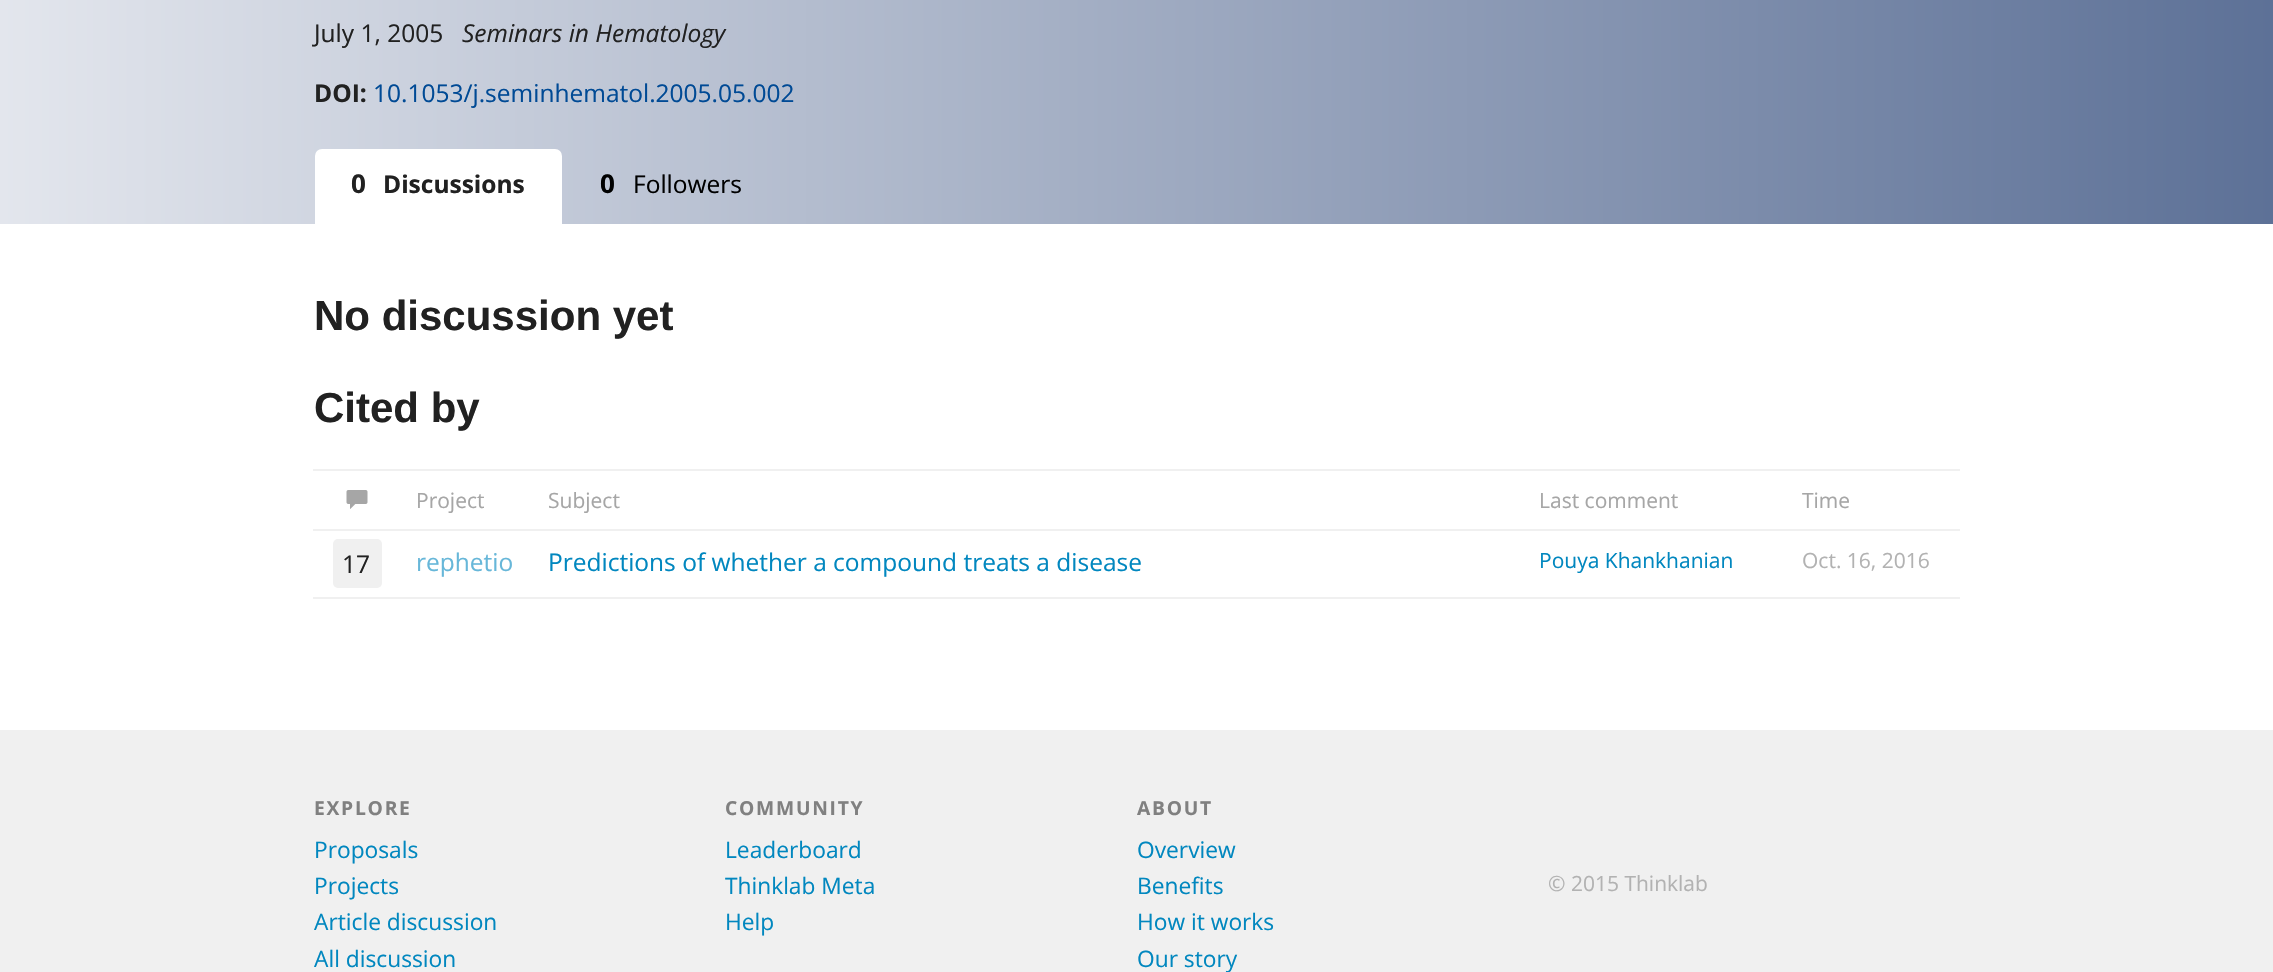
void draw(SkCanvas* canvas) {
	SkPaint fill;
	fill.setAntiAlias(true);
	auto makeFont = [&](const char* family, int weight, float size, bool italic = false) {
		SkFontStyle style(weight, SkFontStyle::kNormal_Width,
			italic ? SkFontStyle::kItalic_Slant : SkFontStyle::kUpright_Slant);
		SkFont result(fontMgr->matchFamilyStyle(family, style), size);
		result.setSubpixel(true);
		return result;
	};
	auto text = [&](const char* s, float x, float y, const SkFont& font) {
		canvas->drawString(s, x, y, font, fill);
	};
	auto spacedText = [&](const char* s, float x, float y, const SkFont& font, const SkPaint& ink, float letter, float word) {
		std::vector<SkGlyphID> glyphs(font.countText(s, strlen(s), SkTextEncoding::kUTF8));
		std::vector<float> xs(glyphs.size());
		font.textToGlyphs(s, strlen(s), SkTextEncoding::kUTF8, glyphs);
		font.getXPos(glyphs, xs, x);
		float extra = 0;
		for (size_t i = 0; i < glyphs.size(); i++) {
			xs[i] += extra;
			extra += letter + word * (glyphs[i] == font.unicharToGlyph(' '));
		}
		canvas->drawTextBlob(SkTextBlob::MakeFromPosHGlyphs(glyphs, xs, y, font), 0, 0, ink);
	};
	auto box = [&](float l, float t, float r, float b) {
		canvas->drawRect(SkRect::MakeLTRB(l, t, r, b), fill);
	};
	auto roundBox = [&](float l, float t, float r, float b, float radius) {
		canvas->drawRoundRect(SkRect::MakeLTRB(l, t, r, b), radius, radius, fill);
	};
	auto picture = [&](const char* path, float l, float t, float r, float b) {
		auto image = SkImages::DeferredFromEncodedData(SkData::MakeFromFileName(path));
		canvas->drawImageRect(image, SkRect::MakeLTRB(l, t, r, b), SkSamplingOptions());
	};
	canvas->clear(0xFFFFFFFF);
	{
		const SkColor colors[] = {0xFFE3E6ED, 0xFF5D7197};
		const float stops[] = {0, 1};
		const SkPoint ends[] = {{0, -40}, {2273, -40}};
		fill.setShader(SkGradientShader::MakeLinear(ends, colors, stops, 2, SkTileMode::kClamp));
		fill.setAlpha(255);
	}
	box(0, 0, 2273, 224);
	fill.setShader(nullptr);
	fill.setColor(0xFFFFFFFF);
	canvas->drawPath(SkPathBuilder().moveTo(322, 150).lineTo(555, 150).cubicTo(558.5f, 150, 561, 152.5f, 561, 156).lineTo(561, 223).lineTo(316, 223).lineTo(316, 156).cubicTo(316, 152.5f, 318.5f, 150, 322, 150).close().detach(), fill);
	fill.setStyle(SkPaint::kStroke_Style);
	fill.setStrokeWidth(2);
	canvas->drawPath(SkPathBuilder().moveTo(322, 150).lineTo(555, 150).cubicTo(558.5f, 150, 561, 152.5f, 561, 156).lineTo(561, 223).lineTo(316, 223).lineTo(316, 156).cubicTo(316, 152.5f, 318.5f, 150, 322, 150).close().detach(), fill);
	picture("image0.png", 346, 490, 368, 509);
	fill.setStyle(SkPaint::kFill_Style);
	fill.setColor(0xFFF0F0F0);
	box(313, 469, 1960, 471);
	roundBox(333, 539, 382, 588, 5);
	box(313, 529, 1960, 531);
	box(313, 597, 1960, 599);
	box(0, 730, 2273, 972);
	auto font1 = makeFont("Open Sans", 400, 24.5f);
	fill.setColor(0xFF212121);
	text("July 1, 2005", 314, 42, font1);
	auto font2 = makeFont("Open Sans", 400, 24.5f, true);
	text("Seminars in Hematology", 462, 42, font2);
	auto font3 = makeFont("Open Sans", 700, 24.5f);
	text("DOI:", 314, 102, font3);
	fill.setColor(0xFF004A95);
	text("10.1053/j.seminhematol.2005.05.002", 373, 102, font1);
	auto font4 = makeFont("Open Sans", 700, 26);
	fill.setColor(0xFF212121);
	text("0", 351, 193, font4);
	text("Discussions", 383, 193, font3);
	fill.setColor(0xFF000000);
	text("0", 600, 193, font4);
	text("Followers", 633, 193, font1);
	auto font5 = makeFont("Liberation Sans", 700, 42);
	fill.setColor(0xFF212121);
	text("No discussion yet", 314, 330, font5);
	text("Cited by", 314, 422, font5);
	auto font6 = makeFont("Open Sans", 400, 21);
	fill.setColor(0xFFA6A6A6);
	text("Project", 416, 508, font6);
	text("Subject", 548, 508, font6);
	text("Last comment", 1539, 508, font6);
	text("Time", 1802, 508, font6);
	fill.setColor(0xFF212121);
	text("17", 342, 573, font1);
	fill.setColor(0xFF67B7D9);
	text("rephetio", 416, 571, font1);
	fill.setColor(0xFF0187BF);
	text("Predictions of whether a compound treats a disease", 548, 571, font1);
	text("Pouya Khankhanian", 1539, 568, font6);
	fill.setColor(0xFFB2B2B2);
	text("Oct. 16, 2016", 1802, 568, font6);
	auto font7 = makeFont("Open Sans", 700, 19.25f);
	fill.setColor(0xFF808080);
	spacedText("EXPLORE", 314, 815, font7, fill, 1.75f, 0);
	auto font8 = makeFont("Open Sans", 400, 22.75f);
	fill.setColor(0xFF0187BF);
	text("Proposals", 314, 858, font8);
	text("Projects", 314, 894, font8);
	text("Article discussion", 314, 930, font8);
	text("All discussion", 314, 967, font8);
	fill.setColor(0xFF808080);
	spacedText("COMMUNITY", 725, 815, font7, fill, 1.75f, 0);
	fill.setColor(0xFF0187BF);
	text("Leaderboard", 725, 858, font8);
	text("Thinklab Meta", 725, 894, font8);
	text("Help", 725, 930, font8);
	fill.setColor(0xFF808080);
	spacedText("ABOUT", 1137, 815, font7, fill, 1.75f, 0);
	fill.setColor(0xFF0187BF);
	text("Overview", 1137, 858, font8);
	text("Benefits", 1137, 894, font8);
	text("How it works", 1137, 930, font8);
	text("Our story", 1137, 967, font8);
	fill.setColor(0xFFB2B2B2);
	text("© 2015 Thinklab", 1548, 891, font6);
}
